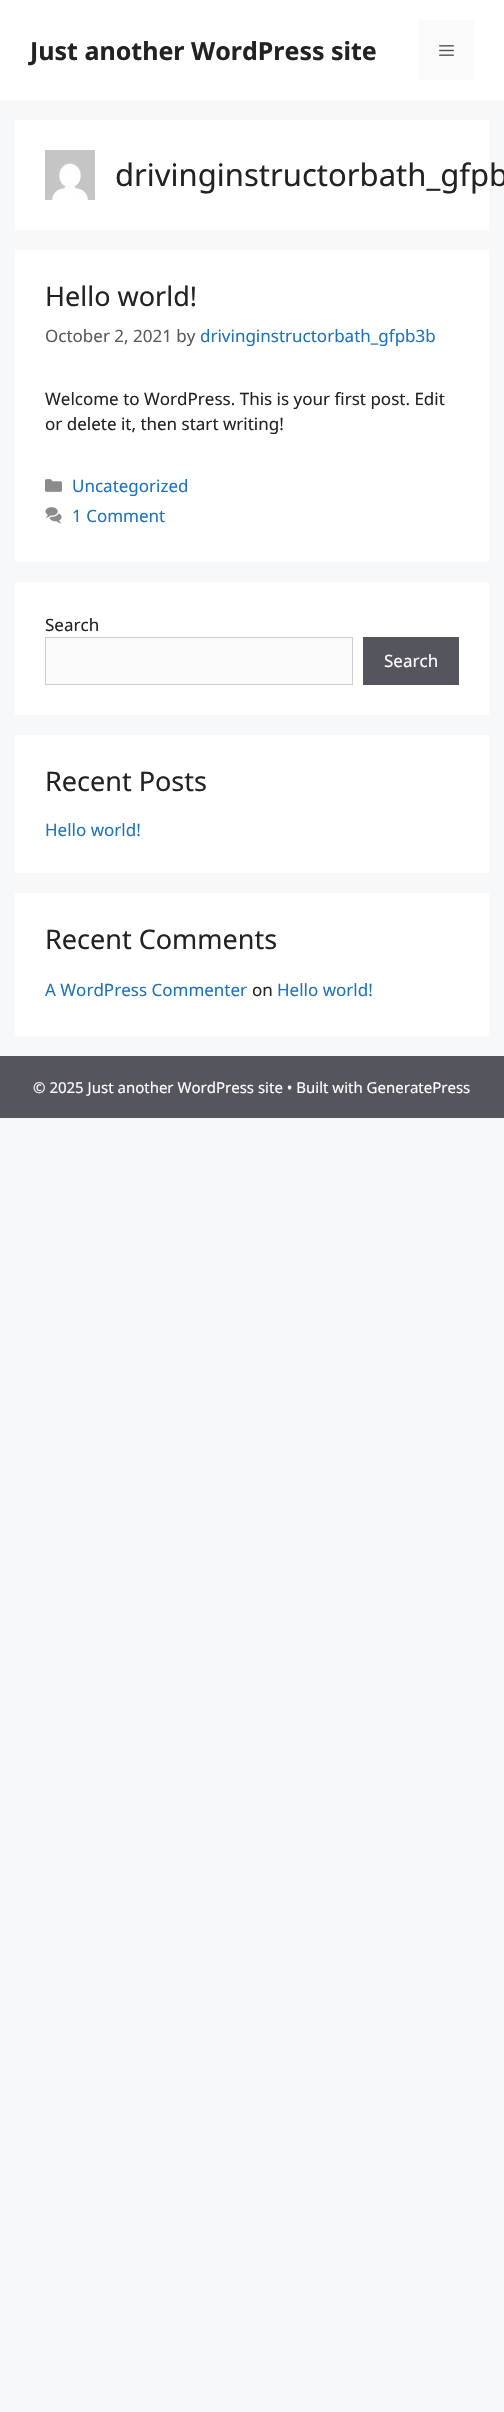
void draw(SkCanvas* canvas) {
	SkPaint fill;
	fill.setAntiAlias(true);
	auto makeFont = [&](const char* family, int weight, float size, bool italic = false) {
		SkFontStyle style(weight, SkFontStyle::kNormal_Width,
			italic ? SkFontStyle::kItalic_Slant : SkFontStyle::kUpright_Slant);
		SkFont result(fontMgr->matchFamilyStyle(family, style), size);
		result.setSubpixel(true);
		return result;
	};
	auto text = [&](const char* s, float x, float y, const SkFont& font) {
		canvas->drawString(s, x, y, font, fill);
	};
	auto box = [&](float l, float t, float r, float b) {
		canvas->drawRect(SkRect::MakeLTRB(l, t, r, b), fill);
	};
	auto picture = [&](const char* path, float l, float t, float r, float b) {
		auto image = SkImages::DeferredFromEncodedData(SkData::MakeFromFileName(path));
		canvas->drawImageRect(image, SkRect::MakeLTRB(l, t, r, b), SkSamplingOptions());
	};
	canvas->clear(0xFFF7F8F9);
	fill.setColor(0xFFFFFFFF);
	box(0, 0, 504, 100);
	fill.setColor(0xFFFAFAFA);
	box(419, 20, 474, 80);
	picture("image0.png", 439, 45, 454, 56);
	fill.setColor(0xFFFFFFFF);
	box(15, 120, 489, 230);
	picture("image1.png", 45, 150, 95, 200);
	box(15, 250, 489, 562);
	picture("image2.png", 45, 479, 62, 492);
	picture("image3.png", 45, 507, 62, 524);
	box(15, 582, 489, 715);
	fill.setColor(0xFFFAFAFA);
	canvas->drawRect(SkRect::MakeLTRB(45.5f, 637.5f, 352.5f, 684.5f), fill);
	fill.setStyle(SkPaint::kStroke_Style);
	fill.setStrokeWidth(1);
	fill.setColor(0xFFCCCCCC);
	canvas->drawRect(SkRect::MakeLTRB(45.5f, 637.5f, 352.5f, 684.5f), fill);
	fill.setStyle(SkPaint::kFill_Style);
	fill.setColor(0xFF55555E);
	box(363, 637, 459, 685);
	fill.setColor(0xFFFFFFFF);
	box(15, 735, 489, 873);
	box(15, 893, 489, 1036);
	fill.setColor(0xFF55555E);
	box(0, 1056, 504, 1118);
	auto font1 = makeFont("Noto Sans", 700, 25);
	fill.setColor(0xFF222222);
	text("Just another WordPress site", 30, 60, font1);
	auto font2 = makeFont("Noto Sans", 400, 31);
	text("drivinginstructorbath_gfpb", 115, 186, font2);
	auto font3 = makeFont("Noto Sans", 400, 27);
	text("Hello world!", 45, 306, font3);
	auto font4 = makeFont("Noto Sans", 400, 17);
	fill.setColor(0xFF595959);
	text("October 2, 2021 by", 45, 342, font4);
	fill.setColor(0xFF1E73BE);
	text("drivinginstructorbath_gfpb3b", 200, 342, font4);
	fill.setColor(0xFF222222);
	text("Welcome to WordPress. This is your first post. Edit", 45, 405, font4);
	text("or delete it, then start writing!", 45, 430, font4);
	fill.setColor(0xFF1E73BE);
	text("Uncategorized", 72, 492, font4);
	text("1 Comment", 72, 522, font4);
	fill.setColor(0xFF222222);
	text("Search", 45, 631, font4);
	fill.setColor(0xFFFFFFFF);
	text("Search", 384, 667, font4);
	fill.setColor(0xFF222222);
	text("Recent Posts", 45, 791, font3);
	fill.setColor(0xFF1E73BE);
	text("Hello world!", 45, 836, font4);
	fill.setColor(0xFF222222);
	text("Recent Comments", 45, 949, font3);
	fill.setColor(0xFF1E73BE);
	text("A WordPress Commenter", 45, 996, font4);
	fill.setColor(0xFF222222);
	text("on", 252, 996, font4);
	fill.setColor(0xFF1E73BE);
	text("Hello world!", 277, 996, font4);
	auto font5 = makeFont("Noto Sans", 400, 15);
	fill.setColor(0xFFFFFFFF);
	text("© 2025 Just another WordPress site • Built with GeneratePress", 33, 1093, font5);
}
